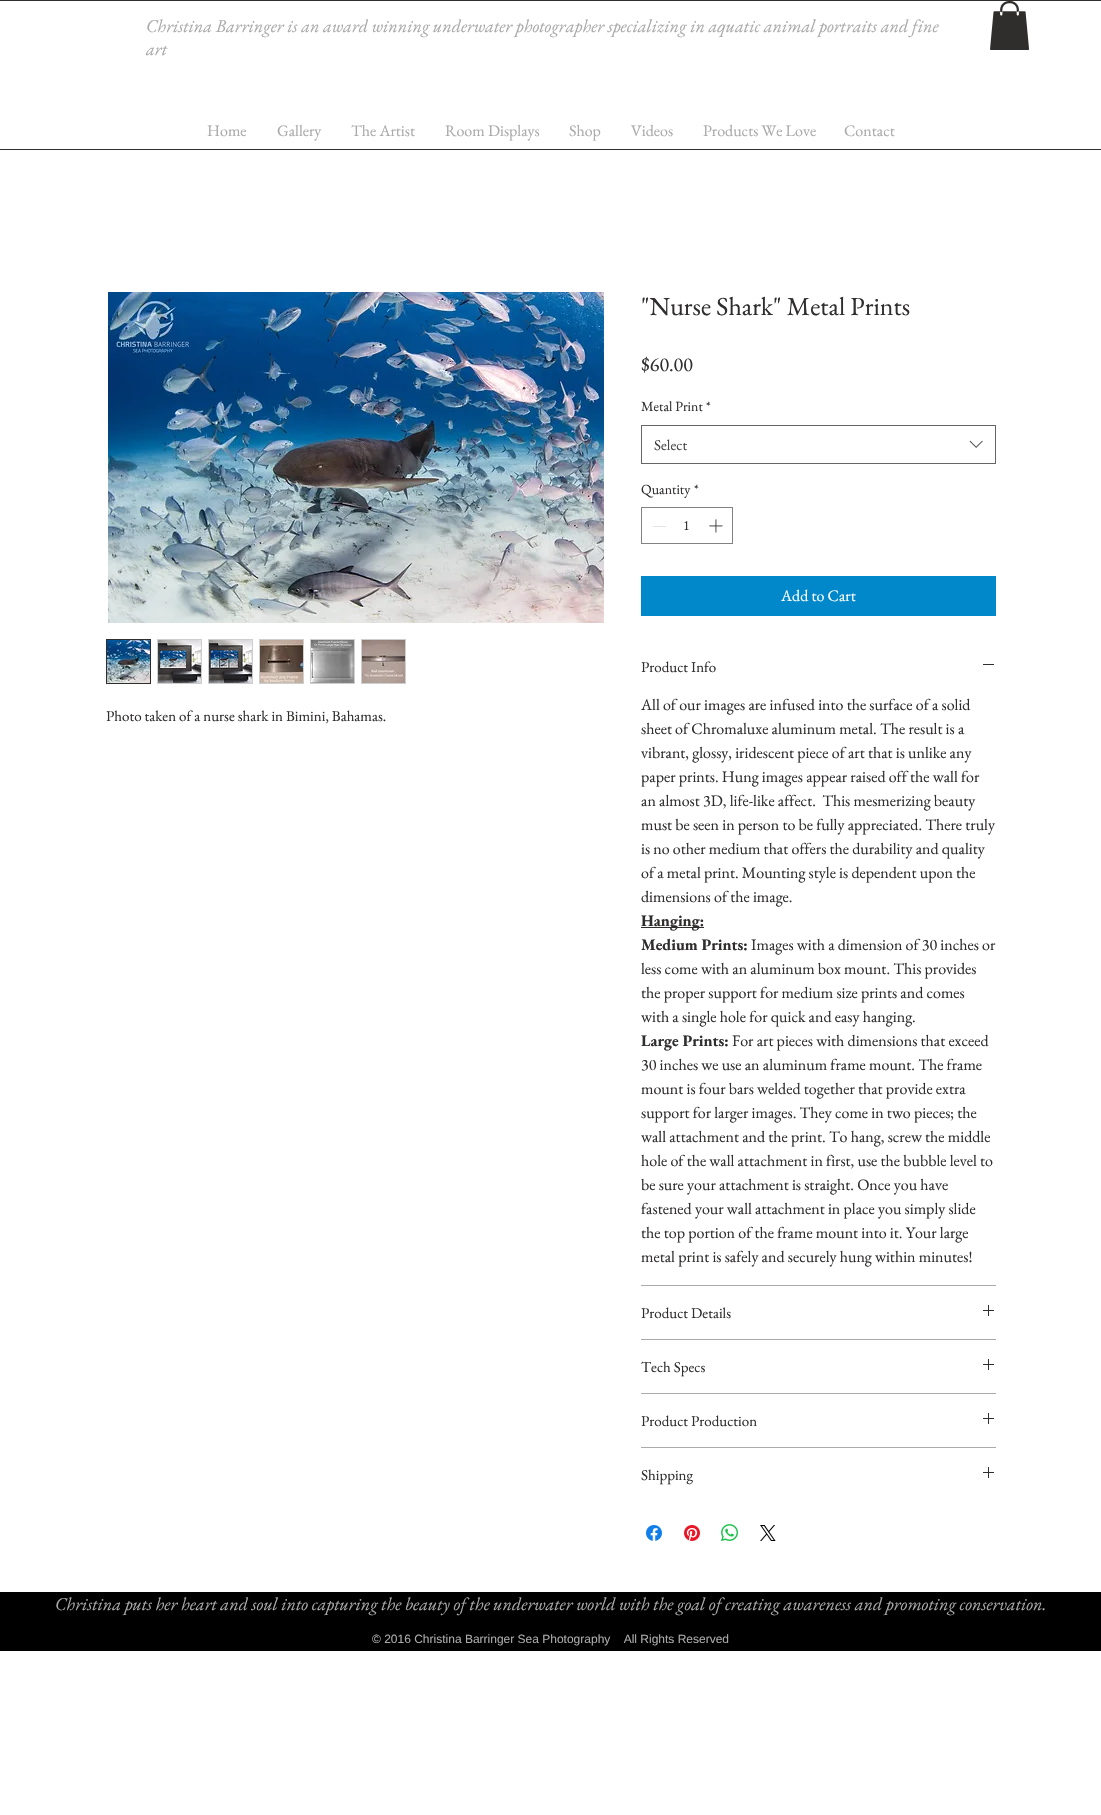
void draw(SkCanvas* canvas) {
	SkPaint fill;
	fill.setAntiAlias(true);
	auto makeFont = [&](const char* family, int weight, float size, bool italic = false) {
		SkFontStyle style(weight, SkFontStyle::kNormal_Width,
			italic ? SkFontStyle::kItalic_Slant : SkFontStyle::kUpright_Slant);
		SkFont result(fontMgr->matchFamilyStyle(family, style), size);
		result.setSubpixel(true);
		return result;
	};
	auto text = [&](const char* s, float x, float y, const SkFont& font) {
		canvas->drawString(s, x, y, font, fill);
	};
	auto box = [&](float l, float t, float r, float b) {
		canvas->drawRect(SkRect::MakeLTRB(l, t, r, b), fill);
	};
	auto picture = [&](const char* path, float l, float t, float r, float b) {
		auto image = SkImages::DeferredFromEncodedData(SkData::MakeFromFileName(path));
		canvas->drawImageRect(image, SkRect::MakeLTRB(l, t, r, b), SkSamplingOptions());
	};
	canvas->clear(0xFFFFFFFF);
	fill.setColor(0xFF302D2D);
	box(0, 0, 1101, 1);
	box(0, 149, 1101, 150);
	picture("image0.png", 990, 1, 1029, 50);
	picture("image1.png", 108, 292, 604, 623);
	fill.setStyle(SkPaint::kStroke_Style);
	fill.setStrokeWidth(1);
	canvas->drawRect(SkRect::MakeLTRB(106.5f, 639.5f, 150.5f, 683.5f), fill);
	picture("image2.png", 107, 640, 150, 683);
	fill.setColor(0xFFCECECE);
	canvas->drawRect(SkRect::MakeLTRB(157.5f, 639.5f, 201.5f, 683.5f), fill);
	picture("image3.png", 158, 640, 201, 683);
	canvas->drawRect(SkRect::MakeLTRB(208.5f, 639.5f, 252.5f, 683.5f), fill);
	picture("image4.png", 209, 640, 252, 683);
	canvas->drawRect(SkRect::MakeLTRB(259.5f, 639.5f, 303.5f, 683.5f), fill);
	picture("image5.png", 260, 640, 303, 683);
	canvas->drawRect(SkRect::MakeLTRB(310.5f, 639.5f, 354.5f, 683.5f), fill);
	picture("image6.png", 311, 640, 354, 683);
	canvas->drawRect(SkRect::MakeLTRB(361.5f, 639.5f, 405.5f, 683.5f), fill);
	picture("image7.png", 362, 640, 405, 683);
	fill.setColor(0xFF666666);
	canvas->drawRect(SkRect::MakeLTRB(641.5f, 425.5f, 995.5f, 463.5f), fill);
	picture("image8.png", 969, 440, 983, 448);
	fill.setColor(0xFF838181);
	canvas->drawRect(SkRect::MakeLTRB(641.5f, 507.5f, 732.5f, 543.5f), fill);
	fill.setStyle(SkPaint::kFill_Style);
	fill.setColor(0xFFE3E3E3);
	box(653, 526, 666, 527);
	picture("image9.png", 709, 519, 723, 533);
	fill.setColor(0xFF0088CB);
	box(641, 576, 996, 616);
	fill.setColor(0xFFAAAAAA);
	box(641, 1285, 996, 1286);
	fill.setColor(0xFF302D2D);
	box(983, 664, 994, 665);
	box(641, 927, 704, 928);
	fill.setColor(0xFFAAAAAA);
	box(641, 1339, 996, 1340);
	picture("image10.png", 983, 1305, 994, 1316);
	box(641, 1393, 996, 1394);
	picture("image10.png", 983, 1359, 994, 1370);
	box(641, 1447, 996, 1448);
	picture("image10.png", 983, 1413, 994, 1424);
	picture("image10.png", 983, 1467, 994, 1478);
	picture("image11.png", 646, 1525, 662, 1541);
	picture("image12.png", 684, 1525, 700, 1541);
	picture("image13.png", 721, 1524, 738, 1541);
	picture("image14.png", 760, 1525, 776, 1541);
	fill.setColor(0xFF000000);
	box(0, 1592, 1101, 1651);
	auto font1 = makeFont("EB Garamond", 400, 18, true);
	fill.setColor(0xFFAAAAAA);
	text("Christina Barringer is an award winning underwater photographer specializing in aquatic animal portraits and fine", 146, 32, font1);
	text("art", 146, 55, font1);
	auto font2 = makeFont("EB Garamond", 400, 16);
	text("Home", 207, 136, font2);
	text("Gallery", 277, 136, font2);
	text("The Artist", 351, 136, font2);
	text("Room Displays", 445, 136, font2);
	text("Shop", 569, 136, font2);
	text("Videos", 631, 136, font2);
	text("Products We Love", 703, 136, font2);
	text("Contact", 844, 136, font2);
	auto font3 = makeFont("EB Garamond", 400, 15);
	fill.setColor(0xFF302D2D);
	text("Photo taken of a nurse shark in Bimini, Bahamas.", 106, 721, font3);
	auto font4 = makeFont("EB Garamond", 400, 26);
	text("\"Nurse Shark\" Metal Prints", 641, 315, font4);
	auto font5 = makeFont("EB Garamond", 400, 20);
	text("$60.00", 641, 371, font5);
	auto font6 = makeFont("EB Garamond", 400, 14);
	text("Metal Print", 641, 411, font6);
	text("*", 706, 411, font6);
	fill.setColor(0xFF444444);
	text("Select", 654, 450, font3);
	fill.setColor(0xFF302D2D);
	text("Quantity", 641, 494, font6);
	text("*", 694, 494, font6);
	text("1", 683, 530, font6);
	fill.setColor(0xFFFFFFFF);
	text("Add to Cart", 781, 601, font2);
	fill.setColor(0xFF302D2D);
	text("Product Info", 641, 672, font3);
	text("All of our images are infused into the surface of a solid", 641, 710, font2);
	text("sheet of Chromaluxe aluminum metal. The result is a", 641, 734, font2);
	text("vibrant, glossy, iridescent piece of art that is unlike any", 641, 758, font2);
	text("paper prints. Hung images appear raised off the wall for", 641, 782, font2);
	text("an almost 3D, life-like affect.  This mesmerizing beauty", 641, 806, font2);
	text("must be seen in person to be fully appreciated. There truly", 641, 830, font2);
	text("is no other medium that offers the durability and quality", 641, 854, font2);
	text("of a metal print. Mounting style is dependent upon the", 641, 878, font2);
	text("dimensions of the image.", 641, 902, font2);
	auto font7 = makeFont("EB Garamond", 700, 16);
	text("Hanging:", 641, 926, font7);
	text("Medium Prints:", 641, 950, font7);
	text("Images with a dimension of 30 inches or", 751, 950, font2);
	text("less come with an aluminum box mount. This provides", 641, 974, font2);
	text("the proper support for medium size prints and comes", 641, 998, font2);
	text("with a single hole for quick and easy hanging.", 641, 1022, font2);
	text("Large Prints:", 641, 1046, font7);
	text("For art pieces with dimensions that exceed", 732, 1046, font2);
	text("30 inches we use an aluminum frame mount. The frame", 641, 1070, font2);
	text("mount is four bars welded together that provide extra", 641, 1094, font2);
	text("support for larger images. They come in two pieces; the", 641, 1118, font2);
	text("wall attachment and the print. To hang, screw the middle", 641, 1142, font2);
	text("hole of the wall attachment in first, use the bubble level to", 641, 1166, font2);
	text("be sure your attachment is straight. Once you have", 641, 1190, font2);
	text("fastened your wall attachment in place you simply slide", 641, 1214, font2);
	text("the top portion of the frame mount into it. Your large", 641, 1238, font2);
	text("metal print is safely and securely hung within minutes!", 641, 1262, font2);
	text("Product Details", 641, 1318, font3);
	text("Tech Specs", 641, 1372, font3);
	text("Product Production", 641, 1426, font3);
	text("Shipping", 641, 1480, font3);
	fill.setColor(0xFFAAAAAA);
	text("Christina puts her heart and soul into capturing the beauty of the underwater world with the goal of creating awareness and promoting conservation.", 55, 1610, font1);
	auto font8 = makeFont("Liberation Sans", 400, 12);
	text("© 2016 Christina Barringer Sea Photography    All Rights Reserved", 372, 1643, font8);
}
